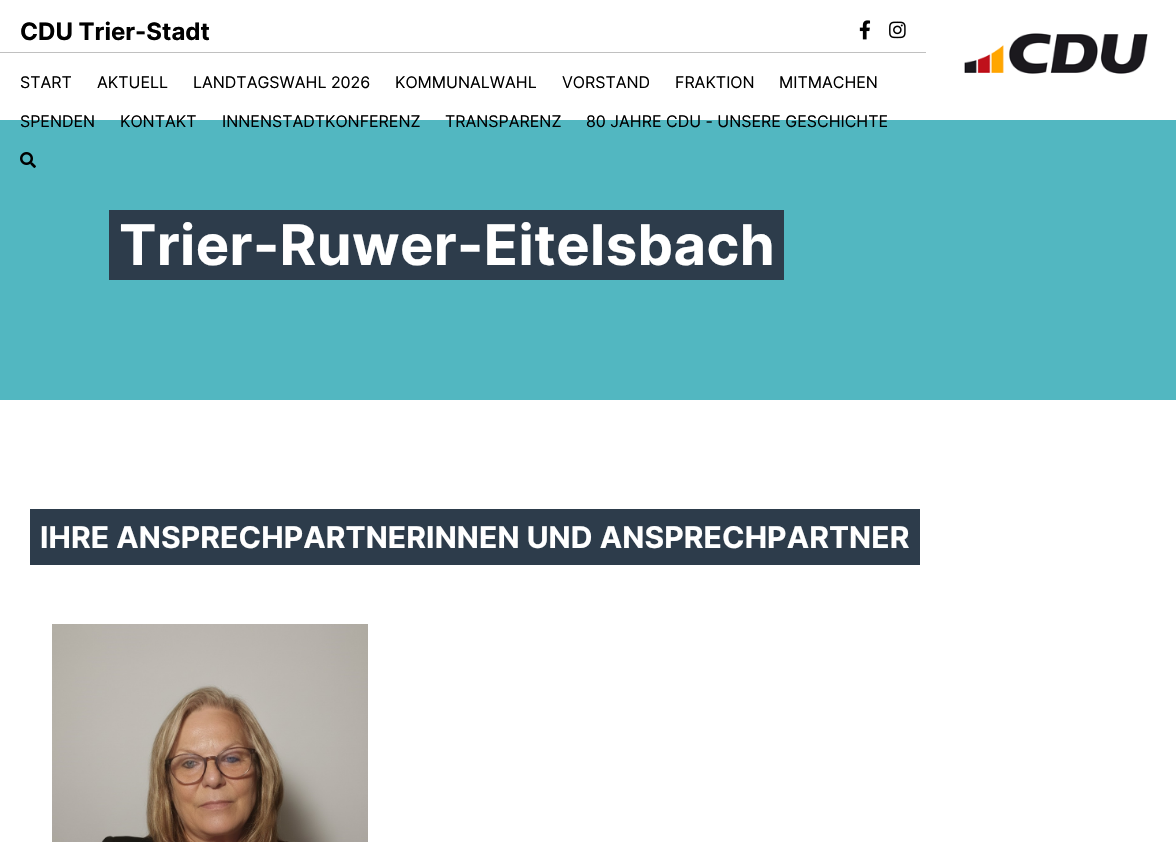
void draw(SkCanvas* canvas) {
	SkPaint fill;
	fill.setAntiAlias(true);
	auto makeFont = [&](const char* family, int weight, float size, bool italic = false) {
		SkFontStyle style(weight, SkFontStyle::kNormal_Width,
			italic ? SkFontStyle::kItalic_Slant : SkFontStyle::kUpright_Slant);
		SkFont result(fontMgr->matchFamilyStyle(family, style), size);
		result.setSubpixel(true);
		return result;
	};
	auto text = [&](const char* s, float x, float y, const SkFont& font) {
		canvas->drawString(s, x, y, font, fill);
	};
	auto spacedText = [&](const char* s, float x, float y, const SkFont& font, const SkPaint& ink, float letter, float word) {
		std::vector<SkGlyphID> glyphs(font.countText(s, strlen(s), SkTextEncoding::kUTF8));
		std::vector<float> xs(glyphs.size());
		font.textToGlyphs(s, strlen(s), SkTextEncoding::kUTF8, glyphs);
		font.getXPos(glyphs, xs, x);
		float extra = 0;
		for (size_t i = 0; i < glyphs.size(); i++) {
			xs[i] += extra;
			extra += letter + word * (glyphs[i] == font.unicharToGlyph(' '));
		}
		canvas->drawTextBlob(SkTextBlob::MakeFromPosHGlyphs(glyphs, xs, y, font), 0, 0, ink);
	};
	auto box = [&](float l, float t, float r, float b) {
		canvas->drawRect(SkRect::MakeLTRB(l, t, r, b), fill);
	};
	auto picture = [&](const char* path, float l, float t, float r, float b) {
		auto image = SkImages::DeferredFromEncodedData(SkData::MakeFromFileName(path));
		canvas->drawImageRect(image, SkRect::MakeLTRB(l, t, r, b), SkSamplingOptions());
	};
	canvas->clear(0xFFFFFFFF);
	fill.setColor(0xFFC0C0C0);
	box(0, 52, 926, 53);
	picture("image0.png", 859, 20, 871, 40);
	picture("image1.png", 889, 21, 906, 39);
	picture("image2.png", 964, 33, 1148, 74);
	fill.setColor(0xFF52B7C1);
	box(0, 120, 1176, 400);
	picture("image3.png", 20, 152, 36, 168);
	fill.setColor(0xFF2D3C4B);
	box(109, 210, 784, 280);
	box(30, 509, 920, 565);
	picture("image4.png", 52, 624, 368, 842);
	auto font1 = makeFont("Inter", 700, 24);
	fill.setColor(0xFF000000);
	text("CDU Trier-Stadt", 20, 40, font1);
	auto font2 = makeFont("Inter", 400, 16);
	text("START", 20, 88, font2);
	text("AKTUELL", 97, 88, font2);
	text("LANDTAGSWAHL 2026", 193, 88, font2);
	text("KOMMUNALWAHL", 395, 88, font2);
	text("VORSTAND", 562, 88, font2);
	text("FRAKTION", 675, 88, font2);
	text("MITMACHEN", 779, 88, font2);
	text("SPENDEN", 20, 127, font2);
	text("KONTAKT", 120, 127, font2);
	text("INNENSTADTKONFERENZ", 222, 127, font2);
	text("TRANSPARENZ", 445, 127, font2);
	text("80 JAHRE CDU - UNSERE GESCHICHTE", 586, 127, font2);
	auto font3 = makeFont("Inter", 700, 56);
	fill.setColor(0xFFFFFFFF);
	spacedText("Trier-Ruwer-Eitelsbach", 119, 265, font3, fill, 0.4f, 0);
	auto font4 = makeFont("Inter", 700, 30);
	spacedText("IHRE ANSPRECHPARTNERINNEN UND ANSPRECHPARTNER", 40, 548, font4, fill, 0.1f, 0);
}
